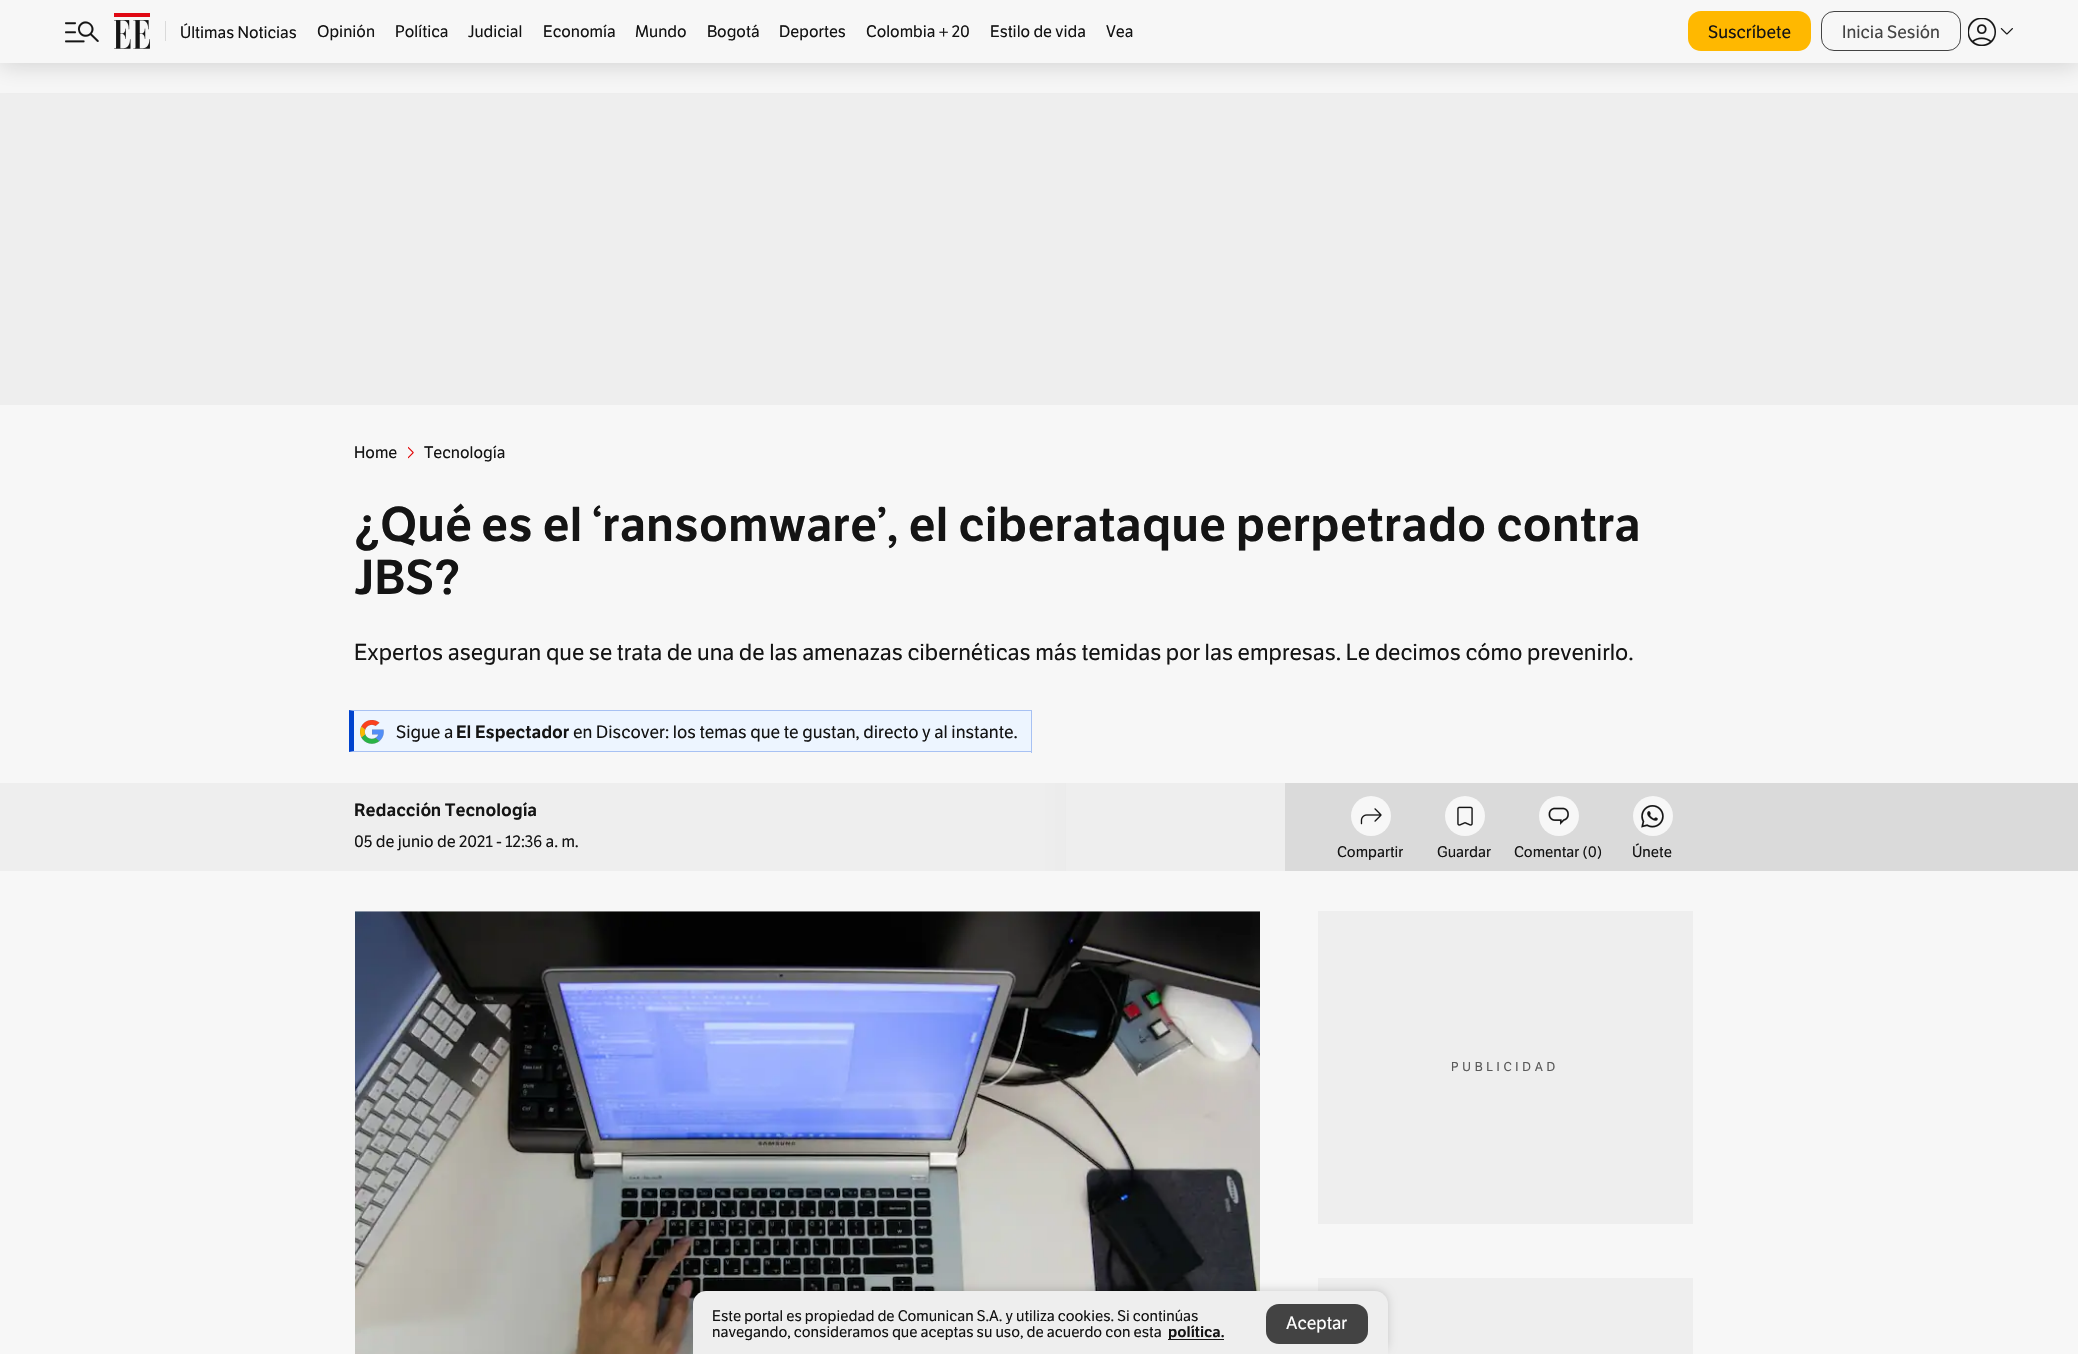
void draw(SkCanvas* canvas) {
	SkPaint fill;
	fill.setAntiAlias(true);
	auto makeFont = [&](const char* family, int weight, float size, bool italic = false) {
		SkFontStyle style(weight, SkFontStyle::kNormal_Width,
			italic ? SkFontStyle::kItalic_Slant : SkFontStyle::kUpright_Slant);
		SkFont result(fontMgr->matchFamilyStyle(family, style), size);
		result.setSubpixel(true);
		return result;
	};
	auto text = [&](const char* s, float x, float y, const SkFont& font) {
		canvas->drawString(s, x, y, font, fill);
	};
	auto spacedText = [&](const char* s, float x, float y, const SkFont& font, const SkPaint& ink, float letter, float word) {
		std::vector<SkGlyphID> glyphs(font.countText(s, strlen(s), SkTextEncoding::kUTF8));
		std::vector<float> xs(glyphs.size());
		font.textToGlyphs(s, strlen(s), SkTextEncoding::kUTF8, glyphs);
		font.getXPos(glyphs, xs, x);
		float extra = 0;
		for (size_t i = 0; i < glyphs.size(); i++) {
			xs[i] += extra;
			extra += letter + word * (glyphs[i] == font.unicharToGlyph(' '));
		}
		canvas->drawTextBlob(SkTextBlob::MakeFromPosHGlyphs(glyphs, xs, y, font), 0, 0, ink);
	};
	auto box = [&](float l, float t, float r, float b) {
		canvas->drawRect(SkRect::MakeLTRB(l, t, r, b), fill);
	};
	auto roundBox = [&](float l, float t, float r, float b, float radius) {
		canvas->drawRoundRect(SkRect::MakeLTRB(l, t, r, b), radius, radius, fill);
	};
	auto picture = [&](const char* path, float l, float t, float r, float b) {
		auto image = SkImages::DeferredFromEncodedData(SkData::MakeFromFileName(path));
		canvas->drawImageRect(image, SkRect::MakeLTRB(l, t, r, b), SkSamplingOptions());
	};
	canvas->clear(0xFFF7F7F7);
	fill.setColor(0xFFEEEEEE);
	box(0, 93, 2078, 405);
	fill.setColor(0x29000000);
	fill.setMaskFilter(SkMaskFilter::MakeBlur(kNormal_SkBlurStyle, 12.5f));
	canvas->drawRect(SkRect::MakeLTRB(0, 3, 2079, 65), fill);
	fill.setMaskFilter(nullptr);
	fill.setColor(0xFFF7F7F7);
	box(0, 0, 2078, 63);
	picture("image0.png", 65, 21, 99, 43);
	picture("image1.png", 114, 13, 150, 49);
	fill.setColor(0xFFDADADA);
	box(165, 21, 166, 41);
	fill.setColor(0xFFFFB800);
	roundBox(1688, 11, 1811, 51, 13);
	fill.setStyle(SkPaint::kStroke_Style);
	fill.setStrokeWidth(1);
	fill.setColor(0xFF434343);
	canvas->drawRoundRect(SkRect::MakeLTRB(1821.5f, 11.5f, 1960.5f, 50.5f), 12.5f, 12.5f, fill);
	picture("image2.png", 1968, 18, 1996, 46);
	picture("image3.png", 2000, 28, 2013, 35);
	picture("image4.png", 408, 446, 414, 459);
	fill.setStyle(SkPaint::kFill_Style);
	fill.setColor(0xFFEDF5FF);
	box(354, 711, 1031, 751);
	fill.setColor(0xFFA7C1F3);
	canvas->drawPath(SkPathBuilder().moveTo(349, 710).lineTo(1032, 710).lineTo(1031, 711).lineTo(354, 711).close().detach(), fill);
	box(1031, 710, 1032, 753);
	canvas->drawPath(SkPathBuilder().moveTo(1032, 752).lineTo(349, 752).lineTo(354, 751).lineTo(1031, 751).close().detach(), fill);
	fill.setColor(0xFF0043CE);
	canvas->drawPath(SkPathBuilder().moveTo(349, 752).lineTo(349, 710).lineTo(354, 711).lineTo(354, 751).close().detach(), fill);
	picture("image5.png", 360, 720, 384, 744);
	{
		const SkColor colors[] = {0xFFEEEEEE, 0xFFDADADA};
		const float stops[] = {0.5f, 0.6f};
		const SkPoint ends[] = {{0, 827}, {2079, 827}};
		fill.setShader(SkGradientShader::MakeLinear(ends, colors, stops, 2, SkTileMode::kClamp));
		fill.setAlpha(255);
	}
	box(0, 783, 2078, 871);
	fill.setShader(nullptr);
	fill.setColor(0xFFEEEEEE);
	box(1066, 783, 1285, 871);
	fill.setColor(0xFFF7F7F7);
	canvas->drawCircle(1371, 816, 20, fill);
	picture("image6.png", 1360, 808, 1382, 825);
	canvas->drawCircle(1465, 816, 20, fill);
	picture("image7.png", 1457, 806, 1473, 826);
	canvas->drawCircle(1559, 816, 20, fill);
	picture("image8.png", 1548, 807, 1569, 825);
	canvas->drawCircle(1653, 816, 20, fill);
	picture("image9.png", 1641, 805, 1664, 828);
	picture("image10.png", 355, 911, 1260, 1354);
	fill.setColor(0xFFEEEEEE);
	box(1318, 911, 1693, 1224);
	box(1318, 1278, 1693, 1354);
	fill.setColor(0x29000000);
	fill.setMaskFilter(SkMaskFilter::MakeBlur(kNormal_SkBlurStyle, 4));
	canvas->drawRoundRect(SkRect::MakeLTRB(693, 1290, 1388, 1354), 13, 13, fill);
	fill.setMaskFilter(nullptr);
	fill.setColor(0xFFEEEEEE);
	canvas->drawPath(SkPathBuilder().moveTo(706, 1291).lineTo(1375, 1291).cubicTo(1382, 1291, 1388, 1297, 1388, 1304).lineTo(1388, 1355).lineTo(693, 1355).lineTo(693, 1304).cubicTo(693, 1297, 699, 1291, 706, 1291).close().detach(), fill);
	fill.setColor(0xFF141414);
	box(1168, 1339, 1224, 1340);
	fill.setColor(0xFF434343);
	roundBox(1266, 1304, 1368, 1344, 13);
	auto font1 = makeFont("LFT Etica", 400, 16.25f);
	fill.setColor(0xFF141414);
	text("Últimas Noticias", 180, 38, font1);
	text("Opinión", 317, 37, font1);
	text("Política", 395, 37, font1);
	text("Judicial", 468, 37, font1);
	text("Economía", 543, 37, font1);
	text("Mundo", 635, 37, font1);
	text("Bogotá", 707, 37, font1);
	text("Deportes", 779, 37, font1);
	text("Colombia + 20", 866, 37, font1);
	text("Estilo de vida", 990, 37, font1);
	text("Vea", 1106, 37, font1);
	auto font2 = makeFont("LFT Etica", 400, 17.5f);
	text("Suscríbete", 1708, 38, font2);
	fill.setColor(0xFF434343);
	text("Inicia Sesión", 1842, 38, font2);
	fill.setColor(0xFF141414);
	text("Home", 354, 458, font1);
	text("Tecnología", 424, 458, font1);
	auto font3 = makeFont("LFT Etica", 600, 47.5f);
	text("¿Qué es el ‘ransomware’, el ciberataque perpetrado contra", 354, 541, font3);
	text("JBS?", 354, 594, font3);
	auto font4 = makeFont("LFT Etica", 400, 22.5f);
	text("Expertos aseguran que se trata de una de las amenazas cibernéticas más temidas por las empresas. Le decimos cómo prevenirlo.", 354, 660, font4);
	text("Sigue a", 396, 738, font2);
	auto font5 = makeFont("LFT Etica", 600, 17.5f);
	text("El Espectador", 456, 738, font5);
	text("en Discover: los temas que te gustan, directo y al instante.", 573, 738, font2);
	text("Redacción Tecnología", 354, 816, font5);
	text("05 de junio de 2021 - 12:36 a. m.", 354, 847, font1);
	auto font6 = makeFont("LFT Etica", 400, 15);
	text("Compartir", 1337, 857, font6);
	text("Guardar", 1437, 857, font6);
	text("Comentar (0)", 1514, 857, font6);
	text("Únete", 1632, 857, font6);
	auto font7 = makeFont("LFT Etica", 400, 12.5f);
	fill.setColor(0xFF5A5A5A);
	spacedText("PUBLICIDAD", 1451, 1071, font7, fill, 3.75f, 0);
	fill.setColor(0xFF141414);
	text("Este portal es propiedad de Comunican S.A. y utiliza cookies. Si continúas", 712, 1321, font6);
	text("navegando, consideramos que aceptas su uso, de acuerdo con esta", 712, 1337, font6);
	auto font8 = makeFont("LFT Etica", 600, 15);
	text("política.", 1168, 1337, font8);
	fill.setColor(0xFFFFFFFF);
	text("Aceptar", 1286, 1329, font2);
}
